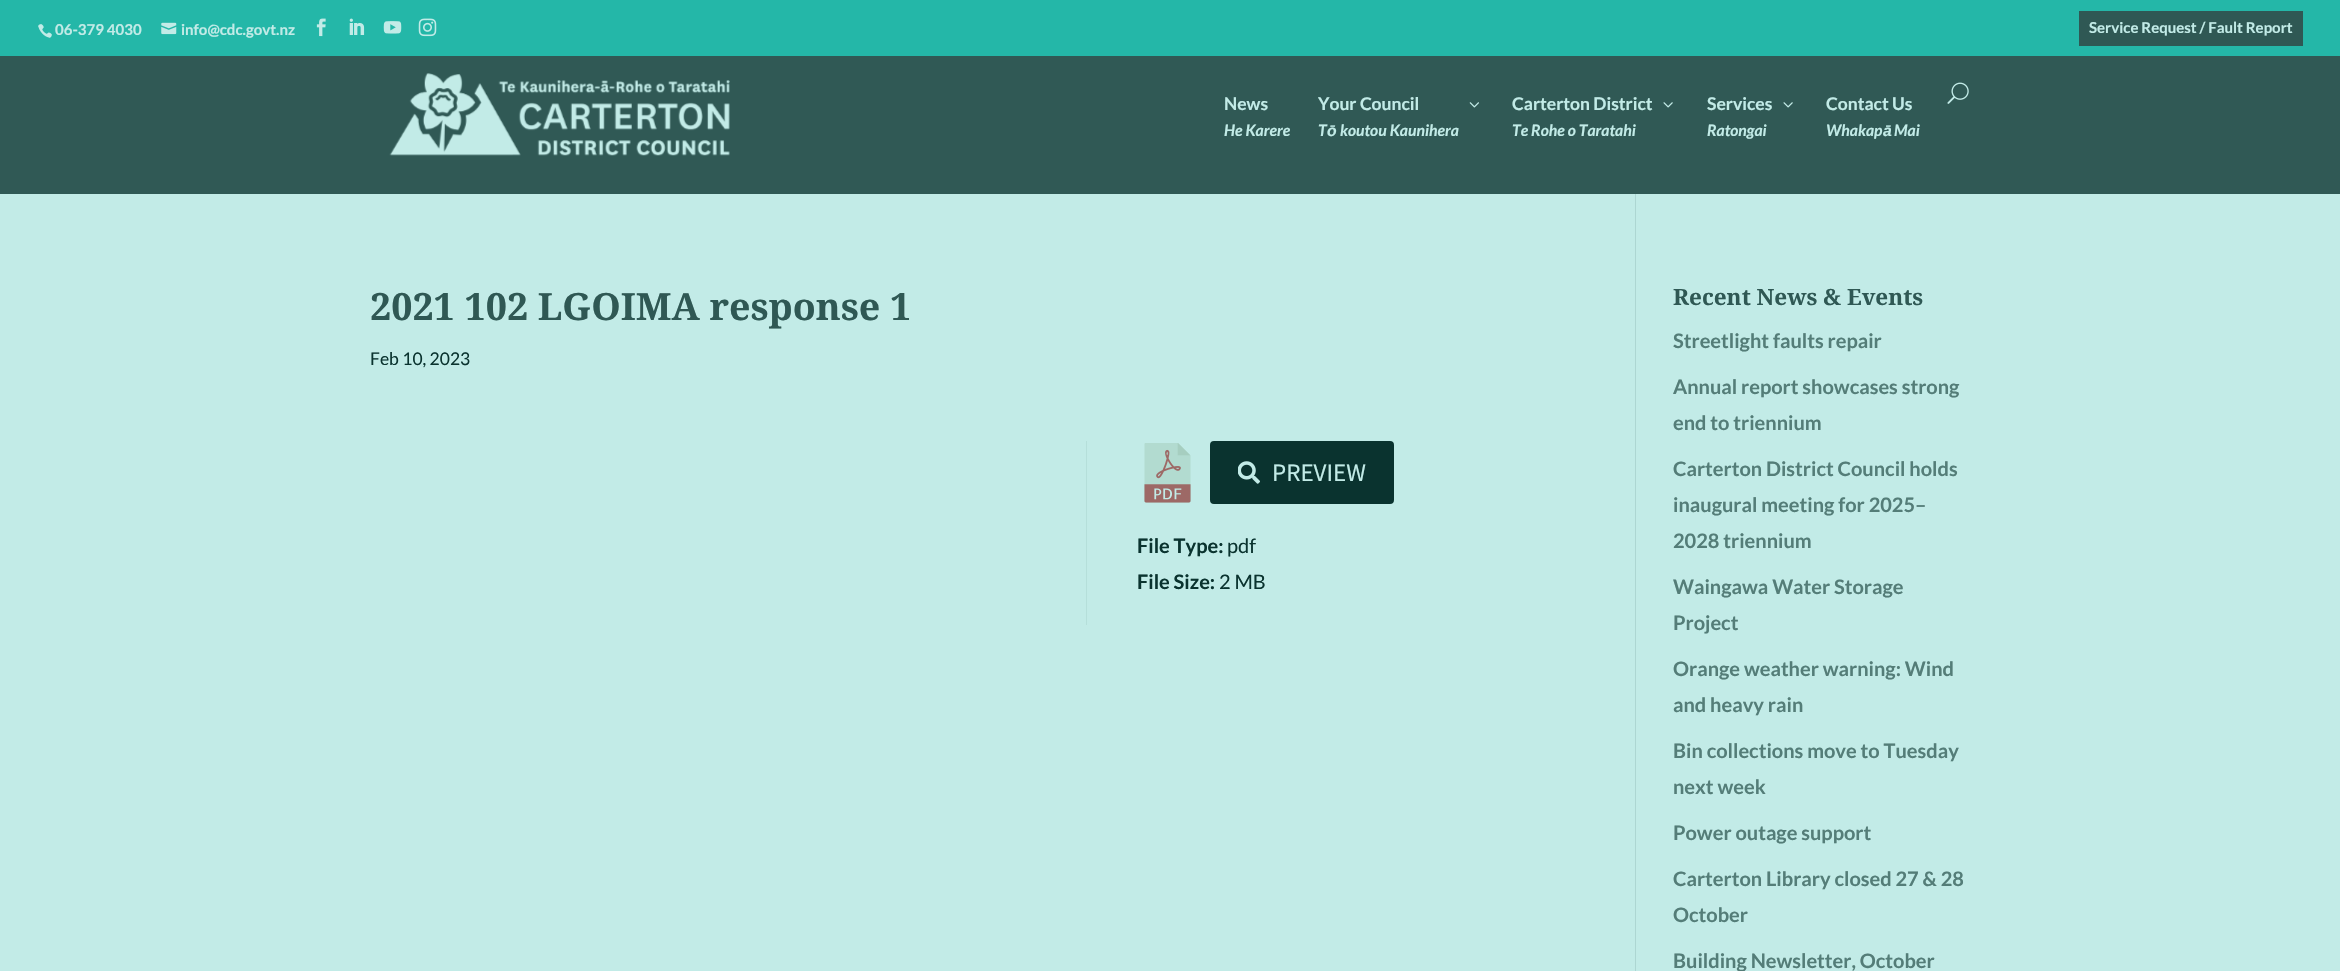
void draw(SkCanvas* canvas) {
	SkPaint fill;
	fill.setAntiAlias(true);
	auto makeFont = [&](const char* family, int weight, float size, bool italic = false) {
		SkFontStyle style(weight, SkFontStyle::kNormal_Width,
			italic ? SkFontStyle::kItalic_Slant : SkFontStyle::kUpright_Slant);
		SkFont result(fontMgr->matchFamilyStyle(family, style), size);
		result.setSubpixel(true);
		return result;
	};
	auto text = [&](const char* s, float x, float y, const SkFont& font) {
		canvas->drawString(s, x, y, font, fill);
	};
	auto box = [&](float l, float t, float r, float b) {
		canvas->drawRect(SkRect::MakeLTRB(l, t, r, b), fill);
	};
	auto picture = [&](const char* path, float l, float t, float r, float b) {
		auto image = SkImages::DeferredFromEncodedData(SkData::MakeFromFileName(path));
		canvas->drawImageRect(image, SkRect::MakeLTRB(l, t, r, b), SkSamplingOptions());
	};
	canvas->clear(0xFFC2EBE7);
	fill.setColor(0xFF305955);
	box(0, 56, 2340, 194);
	fill.setColor(0xFF24B7A8);
	box(0, 0, 2340, 56);
	picture("image0.png", 38, 24, 52, 38);
	picture("image1.png", 161, 22, 177, 35);
	picture("image2.png", 316, 18, 326, 37);
	picture("image3.png", 349, 18, 365, 35);
	picture("image4.png", 383, 21, 402, 34);
	picture("image5.png", 418, 18, 437, 37);
	fill.setColor(0xFF2F5854);
	box(2079, 11, 2303, 46);
	picture("image6.png", 389, 73, 730, 156);
	picture("image7.png", 1947, 82, 1969, 104);
	picture("image8.png", 1469, 102, 1479, 108);
	picture("image9.png", 1663, 102, 1673, 108);
	picture("image9.png", 1783, 102, 1793, 108);
	fill.setColor(0xFFADD6D2);
	box(1635, 194, 1636, 971);
	fill.setColor(0xFFB5DFDA);
	box(1086, 441, 1087, 625);
	picture("image10.png", 1144, 443, 1191, 503);
	fill.setColor(0xFF0A332F);
	canvas->drawRoundRect(SkRect::MakeLTRB(1211.5f, 442.5f, 1392.5f, 502.5f), 2.5f, 2.5f, fill);
	fill.setStyle(SkPaint::kStroke_Style);
	fill.setStrokeWidth(3);
	canvas->drawRoundRect(SkRect::MakeLTRB(1211.5f, 442.5f, 1392.5f, 502.5f), 2.5f, 2.5f, fill);
	picture("image11.png", 1238, 461, 1260, 484);
	auto font1 = makeFont("Lato", 700, 15);
	fill.setStyle(SkPaint::kFill_Style);
	fill.setColor(0xFFC2EBE7);
	text("06-379 4030", 55, 35, font1);
	text("info@cdc.govt.nz", 181, 35, font1);
	text("Service Request / Fault Report", 2089, 33, font1);
	auto font2 = makeFont("Lato", 700, 17.5f);
	text("News", 1224, 110, font2);
	auto font3 = makeFont("Lato", 700, 15.75f, true);
	text("He Karere", 1224, 136, font3);
	text("Your Council", 1318, 110, font2);
	text("T", 1318, 136, font3);
	auto font4 = makeFont("Liberation Sans", 700, 15.75f, true);
	text("ō", 1327, 136, font4);
	text("koutou Kaunihera", 1340, 136, font3);
	text("Carterton District", 1512, 110, font2);
	text("Te Rohe o Taratahi", 1512, 136, font3);
	text("Services", 1707, 110, font2);
	text("Ratongai", 1707, 136, font3);
	text("Contact Us", 1826, 110, font2);
	text("Whakap", 1826, 136, font3);
	text("ā", 1883, 136, font4);
	text("Mai", 1894, 136, font3);
	auto font5 = makeFont("Noto Serif", 700, 37.5f);
	fill.setColor(0xFF2F5854);
	text("2021 102 LGOIMA response 1", 370, 320, font5);
	auto font6 = makeFont("Lato", 400, 17.5f);
	fill.setColor(0xFF0A332F);
	text("Feb 10, 2023", 370, 365, font6);
	auto font7 = makeFont("Source Sans Pro", 400, 25);
	fill.setColor(0xFFC2EBE7);
	text("PREVIEW", 1272, 481, font7);
	auto font8 = makeFont("Lato", 700, 20);
	fill.setColor(0xFF0A332F);
	text("File Type:", 1137, 553, font8);
	auto font9 = makeFont("Lato", 400, 20);
	text("pdf", 1227, 553, font9);
	text("File Size:", 1137, 589, font8);
	text("2 MB", 1219, 589, font9);
	auto font10 = makeFont("Noto Serif", 700, 22.5f);
	fill.setColor(0xFF2F5854);
	text("Recent News & Events", 1673, 305, font10);
	fill.setColor(0xFF547D78);
	text("Streetlight faults repair", 1673, 348, font8);
	text("Annual report showcases strong", 1673, 394, font8);
	text("end to triennium", 1673, 430, font8);
	text("Carterton District Council holds", 1673, 476, font8);
	text("inaugural meeting for 2025–", 1673, 512, font8);
	text("2028 triennium", 1673, 548, font8);
	text("Waingawa Water Storage", 1673, 594, font8);
	text("Project", 1673, 630, font8);
	text("Orange weather warning: Wind", 1673, 676, font8);
	text("and heavy rain", 1673, 712, font8);
	text("Bin collections move to Tuesday", 1673, 758, font8);
	text("next week", 1673, 794, font8);
	text("Power outage support", 1673, 840, font8);
	text("Carterton Library closed 27 & 28", 1673, 886, font8);
	text("October", 1673, 922, font8);
	text("Building Newsletter, October", 1673, 968, font8);
}
